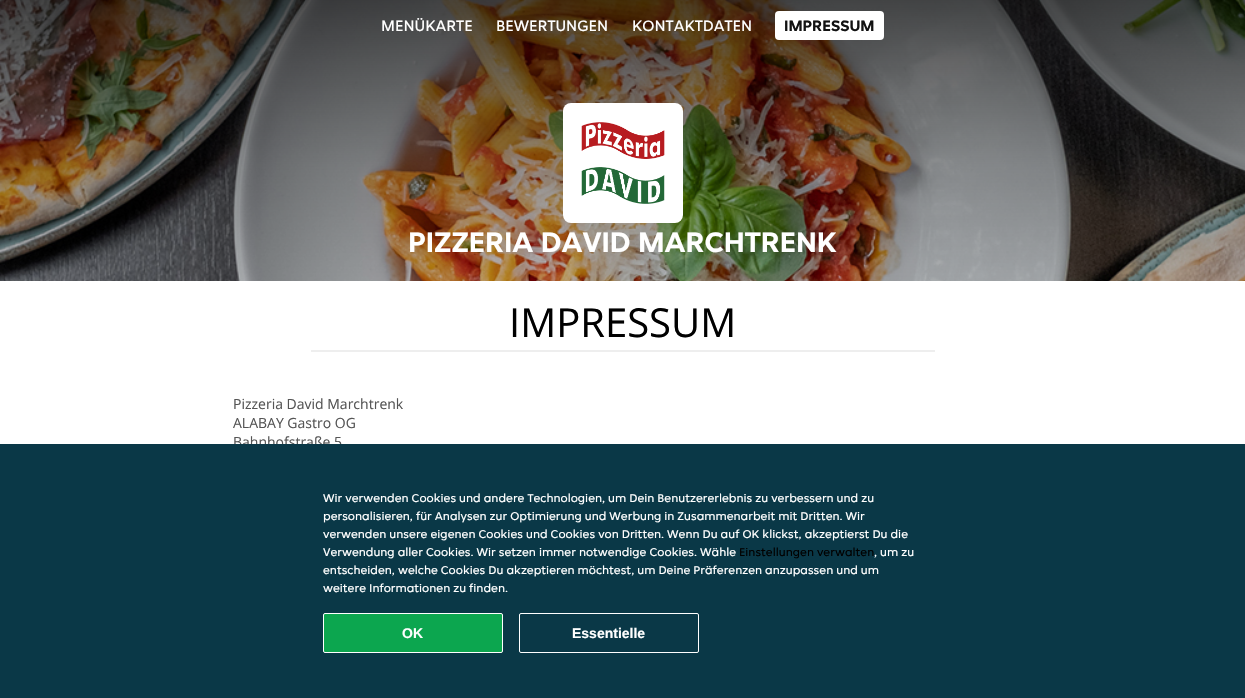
void draw(SkCanvas* canvas) {
	SkPaint fill;
	fill.setAntiAlias(true);
	auto makeFont = [&](const char* family, int weight, float size, bool italic = false) {
		SkFontStyle style(weight, SkFontStyle::kNormal_Width,
			italic ? SkFontStyle::kItalic_Slant : SkFontStyle::kUpright_Slant);
		SkFont result(fontMgr->matchFamilyStyle(family, style), size);
		result.setSubpixel(true);
		return result;
	};
	auto text = [&](const char* s, float x, float y, const SkFont& font) {
		canvas->drawString(s, x, y, font, fill);
	};
	auto box = [&](float l, float t, float r, float b) {
		canvas->drawRect(SkRect::MakeLTRB(l, t, r, b), fill);
	};
	auto roundBox = [&](float l, float t, float r, float b, float radius) {
		canvas->drawRoundRect(SkRect::MakeLTRB(l, t, r, b), radius, radius, fill);
	};
	auto picture = [&](const char* path, float l, float t, float r, float b) {
		auto image = SkImages::DeferredFromEncodedData(SkData::MakeFromFileName(path));
		canvas->drawImageRect(image, SkRect::MakeLTRB(l, t, r, b), SkSamplingOptions());
	};
	canvas->clear(0xFFFFFFFF);
	picture("image0.png", 0, 0, 1245, 281);
	{
		const SkColor colors[] = {0xB3000000, 0x66000000, 0x33000000, 0x00000000};
		const float stops[] = {0, 0.33f, 0.67f, 1};
		const SkPoint ends[] = {{623, 0}, {623, 500}};
		fill.setShader(SkGradientShader::MakeLinear(ends, colors, stops, 4, SkTileMode::kClamp));
		fill.setAlpha(255);
	}
	box(0, 0, 1245, 281);
	fill.setShader(nullptr);
	fill.setColor(0xFFFFFFFF);
	roundBox(775, 11, 884, 40, 4);
	roundBox(563, 103, 683, 223, 8);
	picture("image1.png", 581, 122, 665, 204);
	fill.setColor(0xFFEEEEEE);
	box(311, 350, 935, 352);
	auto font1 = makeFont("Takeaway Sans", 400, 16);
	fill.setColor(0xFFFFFFFF);
	text("MENÜKARTE", 381, 31, font1);
	text("BEWERTUNGEN", 496, 31, font1);
	text("KONTAKTDATEN", 632, 31, font1);
	auto font2 = makeFont("Takeaway Sans", 700, 16);
	fill.setColor(0xFF121212);
	text("IMPRESSUM", 784, 31, font2);
	auto font3 = makeFont("Takeaway Sans", 700, 30);
	fill.setColor(0xFFFFFFFF);
	text("PIZZERIA DAVID MARCHTRENK", 408, 252, font3);
	auto font4 = makeFont("Open Sans", 400, 40);
	fill.setColor(0xFF000000);
	text("IMPRESSUM", 509, 337, font4);
	auto font5 = makeFont("Open Sans", 400, 14);
	fill.setColor(0xFF555555);
	text("Pizzeria David Marchtrenk", 233, 409, font5);
	text("ALABAY Gastro OG", 233, 428, font5);
	text("Bahnhofstraße 5", 233, 447, font5);
	fill.setColor(0xFF0A3847);
	box(0, 444, 1245, 698);
	auto font6 = makeFont("Takeaway Sans", 400, 12);
	fill.setColor(0xFFFFFFFF);
	text("Wir verwenden Cookies und andere Technologien, um Dein Benutzererlebnis zu verbessern und zu", 323, 502, font6);
	text("personalisieren, für Analysen zur Optimierung und Werbung in Zusammenarbeit mit Dritten. Wir", 323, 520, font6);
	text("verwenden unsere eigenen Cookies und Cookies von Dritten. Wenn Du auf OK klickst, akzeptierst Du die", 323, 538, font6);
	text("Verwendung aller Cookies. Wir setzen immer notwendige Cookies. Wähle", 323, 556, font6);
	fill.setColor(0xFF000000);
	text("Einstellungen verwalten", 739, 556, font6);
	fill.setColor(0xFFFFFFFF);
	text(", um zu", 874, 556, font6);
	text("entscheiden, welche Cookies Du akzeptieren möchtest, um Deine Präferenzen anzupassen und um", 323, 574, font6);
	text("weitere Informationen zu finden.", 323, 592, font6);
	fill.setColor(0xFF0CA64F);
	canvas->drawRoundRect(SkRect::MakeLTRB(323.5f, 613.5f, 502.5f, 652.5f), 1.5f, 1.5f, fill);
	fill.setStyle(SkPaint::kStroke_Style);
	fill.setStrokeWidth(1);
	fill.setColor(0xFFFFFFFF);
	canvas->drawRoundRect(SkRect::MakeLTRB(323.5f, 613.5f, 502.5f, 652.5f), 1.5f, 1.5f, fill);
	auto font7 = makeFont("Liberation Sans", 700, 14);
	fill.setStyle(SkPaint::kFill_Style);
	text("OK", 402, 638, font7);
	fill.setStyle(SkPaint::kStroke_Style);
	canvas->drawRoundRect(SkRect::MakeLTRB(519.5f, 613.5f, 698.5f, 652.5f), 1.5f, 1.5f, fill);
	fill.setStyle(SkPaint::kFill_Style);
	text("Essentielle", 572, 638, font7);
}
